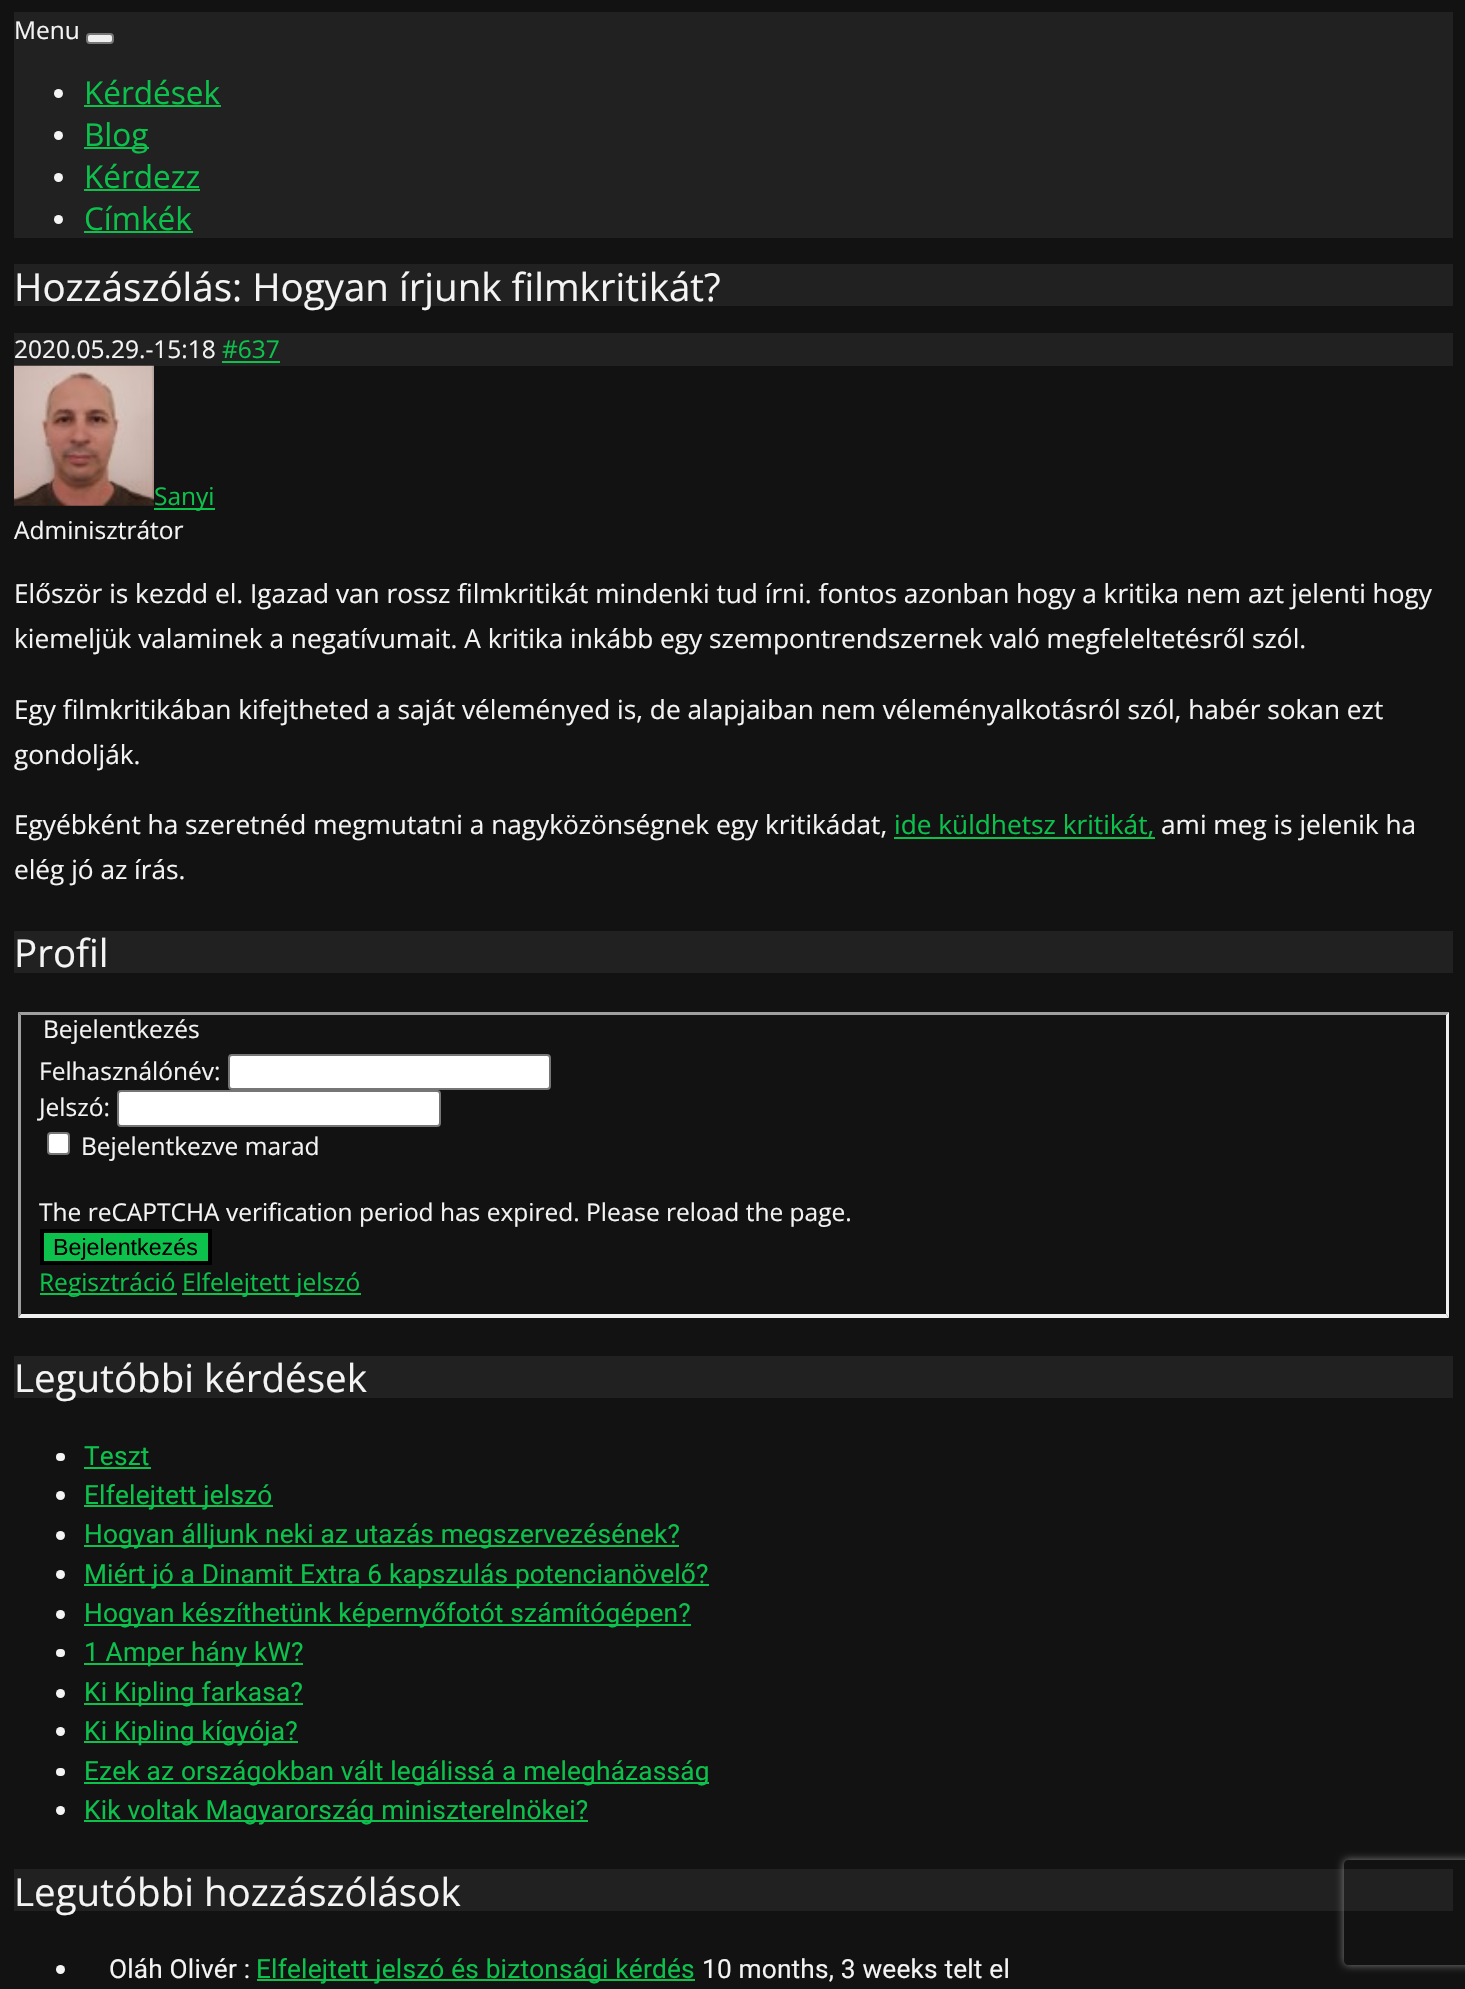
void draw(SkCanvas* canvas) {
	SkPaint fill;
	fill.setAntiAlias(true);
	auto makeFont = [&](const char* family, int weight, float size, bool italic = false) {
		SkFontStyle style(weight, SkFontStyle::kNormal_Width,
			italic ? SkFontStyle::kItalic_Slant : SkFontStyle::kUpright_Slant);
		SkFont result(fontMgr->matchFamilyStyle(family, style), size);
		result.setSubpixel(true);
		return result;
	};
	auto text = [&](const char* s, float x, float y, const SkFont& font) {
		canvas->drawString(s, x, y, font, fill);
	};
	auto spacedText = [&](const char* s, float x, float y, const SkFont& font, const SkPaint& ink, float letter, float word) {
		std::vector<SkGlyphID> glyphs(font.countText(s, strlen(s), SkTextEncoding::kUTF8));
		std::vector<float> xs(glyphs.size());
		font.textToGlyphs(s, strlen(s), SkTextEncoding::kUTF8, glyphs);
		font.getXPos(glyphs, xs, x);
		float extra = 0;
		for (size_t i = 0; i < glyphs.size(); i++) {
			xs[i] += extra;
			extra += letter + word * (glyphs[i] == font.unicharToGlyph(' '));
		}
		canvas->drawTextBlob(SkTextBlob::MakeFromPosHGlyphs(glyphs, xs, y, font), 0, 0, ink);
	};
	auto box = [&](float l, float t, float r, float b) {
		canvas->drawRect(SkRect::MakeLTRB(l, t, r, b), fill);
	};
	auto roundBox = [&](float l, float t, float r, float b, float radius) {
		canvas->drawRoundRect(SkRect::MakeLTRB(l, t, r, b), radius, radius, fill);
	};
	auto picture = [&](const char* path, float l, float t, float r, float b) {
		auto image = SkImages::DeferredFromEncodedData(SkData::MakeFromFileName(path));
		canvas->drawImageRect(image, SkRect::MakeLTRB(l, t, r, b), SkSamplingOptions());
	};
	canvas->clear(0xFF121212);
	fill.setColor(0xFF212121);
	box(14, 12, 1453, 238);
	fill.setColor(0xFFEFEFEF);
	canvas->drawRoundRect(SkRect::MakeLTRB(87, 34, 113, 43), 3, 3, fill);
	fill.setStyle(SkPaint::kStroke_Style);
	fill.setStrokeWidth(2);
	fill.setColor(0xFF767676);
	canvas->drawRoundRect(SkRect::MakeLTRB(87, 34, 113, 43), 3, 3, fill);
	fill.setStyle(SkPaint::kFill_Style);
	fill.setColor(0xFFF4F4F4);
	canvas->drawCircle(58.5f, 93.5f, 4.5f, fill);
	fill.setColor(0xFF0DC14D);
	box(84, 105, 221, 107);
	fill.setColor(0xFFF4F4F4);
	canvas->drawCircle(58.5f, 135.5f, 4.5f, fill);
	fill.setColor(0xFF0DC14D);
	box(84, 147, 149, 149);
	fill.setColor(0xFFF4F4F4);
	canvas->drawCircle(58.5f, 177.5f, 4.5f, fill);
	fill.setColor(0xFF0DC14D);
	box(84, 189, 200, 191);
	fill.setColor(0xFFF4F4F4);
	canvas->drawCircle(58.5f, 219.5f, 4.5f, fill);
	fill.setColor(0xFF0DC14D);
	box(84, 231, 193, 233);
	fill.setColor(0xFF212121);
	box(14, 264, 1453, 306);
	box(14, 333, 1453, 366);
	fill.setColor(0xFF0DC14D);
	box(222, 361, 280, 363);
	picture("image0.png", 14, 365, 154, 506);
	box(154, 508, 215, 510);
	box(894, 837, 1155, 839);
	fill.setColor(0xFF212121);
	box(14, 931, 1453, 973);
	fill.setColor(0xFF9F9F9F);
	canvas->drawPath(SkPathBuilder().moveTo(18, 1012).lineTo(1449, 1012).lineTo(1446, 1015).lineTo(21, 1015).close().detach(), fill);
	fill.setColor(0xFFEFEFEF);
	canvas->drawPath(SkPathBuilder().moveTo(1449, 1012).lineTo(1449, 1318).lineTo(1446, 1314).lineTo(1446, 1015).close().detach(), fill);
	canvas->drawPath(SkPathBuilder().moveTo(1449, 1318).lineTo(18, 1318).lineTo(21, 1314).lineTo(1446, 1314).close().detach(), fill);
	fill.setColor(0xFF9F9F9F);
	canvas->drawPath(SkPathBuilder().moveTo(18, 1318).lineTo(18, 1012).lineTo(21, 1015).lineTo(21, 1314).close().detach(), fill);
	fill.setColor(0xFFFFFFFF);
	canvas->drawRoundRect(SkRect::MakeLTRB(229, 1055, 550, 1089), 3, 3, fill);
	fill.setStyle(SkPaint::kStroke_Style);
	fill.setColor(0xFF767676);
	canvas->drawRoundRect(SkRect::MakeLTRB(229, 1055, 550, 1089), 3, 3, fill);
	fill.setStyle(SkPaint::kFill_Style);
	fill.setColor(0xFFFFFFFF);
	canvas->drawRoundRect(SkRect::MakeLTRB(118, 1091, 440, 1126), 3, 3, fill);
	fill.setStyle(SkPaint::kStroke_Style);
	fill.setColor(0xFF767676);
	canvas->drawRoundRect(SkRect::MakeLTRB(118, 1091, 440, 1126), 3, 3, fill);
	fill.setStyle(SkPaint::kFill_Style);
	fill.setColor(0xFFFFFFFF);
	canvas->drawRoundRect(SkRect::MakeLTRB(48, 1133, 69, 1154), 3, 3, fill);
	fill.setStyle(SkPaint::kStroke_Style);
	fill.setColor(0xFF767676);
	canvas->drawRoundRect(SkRect::MakeLTRB(48, 1133, 69, 1154), 3, 3, fill);
	fill.setStyle(SkPaint::kFill_Style);
	fill.setColor(0xFF0DC14D);
	canvas->drawRect(SkRect::MakeLTRB(42, 1231, 210, 1263), fill);
	fill.setStyle(SkPaint::kStroke_Style);
	fill.setStrokeWidth(4);
	fill.setColor(0xFF000000);
	canvas->drawRect(SkRect::MakeLTRB(42, 1231, 210, 1263), fill);
	fill.setStyle(SkPaint::kFill_Style);
	fill.setColor(0xFF0DC14D);
	box(40, 1293, 177, 1295);
	box(182, 1293, 361, 1295);
	fill.setColor(0xFF212121);
	box(14, 1356, 1453, 1398);
	fill.setColor(0xFFF4F4F4);
	roundBox(56, 1453, 65, 1461, 4);
	fill.setColor(0xFF0DC14D);
	box(84, 1467, 151, 1469);
	fill.setColor(0xFFF4F4F4);
	canvas->drawCircle(60.5f, 1495.5f, 4.5f, fill);
	fill.setColor(0xFF0DC14D);
	box(84, 1505, 273, 1507);
	fill.setColor(0xFFF4F4F4);
	canvas->drawCircle(60.5f, 1535.5f, 4.5f, fill);
	fill.setColor(0xFF0DC14D);
	box(84, 1545, 679, 1547);
	fill.setColor(0xFFF4F4F4);
	canvas->drawCircle(60.5f, 1574.5f, 4.5f, fill);
	fill.setColor(0xFF0DC14D);
	box(84, 1584, 709, 1586);
	fill.setColor(0xFFF4F4F4);
	canvas->drawCircle(60.5f, 1614.5f, 4.5f, fill);
	fill.setColor(0xFF0DC14D);
	box(84, 1624, 691, 1626);
	fill.setColor(0xFFF4F4F4);
	roundBox(56, 1649, 65, 1657, 4);
	fill.setColor(0xFF0DC14D);
	box(84, 1663, 303, 1665);
	fill.setColor(0xFFF4F4F4);
	canvas->drawCircle(60.5f, 1693.5f, 4.5f, fill);
	fill.setColor(0xFF0DC14D);
	box(84, 1703, 303, 1705);
	fill.setColor(0xFFF4F4F4);
	canvas->drawCircle(60.5f, 1731.5f, 4.5f, fill);
	fill.setColor(0xFF0DC14D);
	box(84, 1741, 298, 1743);
	fill.setColor(0xFFF4F4F4);
	roundBox(56, 1768, 65, 1776, 4);
	fill.setColor(0xFF0DC14D);
	box(84, 1782, 709, 1784);
	fill.setColor(0xFFF4F4F4);
	canvas->drawCircle(60.5f, 1810.5f, 4.5f, fill);
	fill.setColor(0xFF0DC14D);
	box(84, 1820, 588, 1822);
	fill.setColor(0xFF212121);
	box(14, 1869, 1453, 1911);
	fill.setColor(0xFFF4F4F4);
	canvas->drawCircle(60.5f, 1969.5f, 4.5f, fill);
	fill.setColor(0xFF0DC14D);
	box(257, 1979, 695, 1981);
	canvas->save();
	canvas->clipPath(SkPathBuilder(SkPathFillType::kEvenOdd).moveTo(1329, 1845).lineTo(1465, 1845).lineTo(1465, 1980).lineTo(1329, 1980).close().moveTo(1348, 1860).lineTo(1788, 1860).cubicTo(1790, 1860, 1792, 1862, 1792, 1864).lineTo(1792, 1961).cubicTo(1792, 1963, 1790, 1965, 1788, 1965).lineTo(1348, 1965).cubicTo(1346, 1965, 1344, 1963, 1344, 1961).lineTo(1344, 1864).cubicTo(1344, 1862, 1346, 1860, 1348, 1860).close().detach(), true);
	fill.setColor(0xFF808080);
	fill.setMaskFilter(SkMaskFilter::MakeBlur(kNormal_SkBlurStyle, 4.5f));
	canvas->drawRoundRect(SkRect::MakeLTRB(1344, 1860, 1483, 1965), 4, 4, fill);
	fill.setMaskFilter(nullptr);
	canvas->restore();
	auto font1 = makeFont("Open Sans", 400, 24.5f);
	fill.setColor(0xFFF4F4F4);
	text("Menu", 14, 39, font1);
	auto font2 = makeFont("Open Sans", 400, 31.5f);
	fill.setColor(0xFF0DC14D);
	text("Kérdések", 84, 104, font2);
	text("Blog", 84, 146, font2);
	text("Kérdezz", 84, 188, font2);
	text("Címkék", 84, 230, font2);
	auto font3 = makeFont("Open Sans", 400, 38.5f);
	fill.setColor(0xFFF4F4F4);
	text("Hozzászólás: Hogyan írjunk filmkritikát?", 14, 301, font3);
	text("2020.05.29.-15:18", 14, 358, font1);
	fill.setColor(0xFF0DC14D);
	text("#637", 222, 358, font1);
	text("Sanyi", 154, 505, font1);
	fill.setColor(0xFFF4F4F4);
	text("Adminisztrátor", 14, 539, font1);
	auto font4 = makeFont("Open Sans", 400, 26.25f);
	text("Először is kezdd el. Igazad van rossz filmkritikát mindenki tud írni. fontos azonban hogy a kritika nem azt jelenti hogy", 14, 603, font4);
	text("kiemeljük valaminek a negatívumait. A kritika inkább egy szempontrendszernek való megfeleltetésről szól.", 14, 648, font4);
	text("Egy filmkritikában kifejtheted a saját véleményed is, de alapjaiban nem véleményalkotásról szól, habér sokan ezt", 14, 719, font4);
	text("gondolják.", 14, 764, font4);
	text("Egyébként ha szeretnéd megmutatni a nagyközönségnek egy kritikádat,", 14, 834, font4);
	fill.setColor(0xFF0DC14D);
	text("ide küldhetsz kritikát,", 894, 834, font4);
	fill.setColor(0xFFF4F4F4);
	text("ami meg is jelenik ha", 1161, 834, font4);
	text("elég jó az írás.", 14, 879, font4);
	text("Profil", 14, 967, font3);
	text("Bejelentkezés", 43, 1038, font1);
	text("Felhasználónév:", 39, 1080, font1);
	text("Jelszó:", 39, 1116, font1);
	text("Bejelentkezve marad", 81, 1155, font1);
	text("The reCAPTCHA verification period has expired. Please reload the page.", 39, 1221, font1);
	auto font5 = makeFont("Liberation Sans", 400, 23.25f);
	fill.setColor(0xFF000000);
	text("Bejelentkezés", 53, 1255, font5);
	fill.setColor(0xFF0DC14D);
	text("Regisztráció", 39, 1291, font1);
	text("Elfelejtett jelszó", 182, 1291, font1);
	fill.setColor(0xFFF4F4F4);
	text("Legutóbbi kérdések", 14, 1392, font3);
	auto font6 = makeFont("Roboto", 400, 26.25f);
	fill.setColor(0xFF0DC14D);
	spacedText("Teszt", 84, 1465, font6, fill, 0.18f, 0);
	spacedText("Elfelejtett jelszó", 84, 1504, font6, fill, 0.18f, 0);
	spacedText("Hogyan álljunk neki az utazás megszervezésének?", 84, 1543, font6, fill, 0.18f, 0);
	spacedText("Miért jó a Dinamit Extra 6 kapszulás potencianövelő?", 84, 1583, font6, fill, 0.18f, 0);
	spacedText("Hogyan készíthetünk képernyőfotót számítógépen?", 84, 1622, font6, fill, 0.18f, 0);
	spacedText("1 Amper hány kW?", 84, 1661, font6, fill, 0.18f, 0);
	spacedText("Ki Kipling farkasa?", 84, 1701, font6, fill, 0.18f, 0);
	spacedText("Ki Kipling kígyója?", 84, 1740, font6, fill, 0.18f, 0);
	spacedText("Ezek az országokban vált legálissá a melegházasság", 84, 1780, font6, fill, 0.18f, 0);
	spacedText("Kik voltak Magyarország miniszterelnökei?", 84, 1819, font6, fill, 0.18f, 0);
	fill.setColor(0xFFF4F4F4);
	text("Legutóbbi hozzászólások", 14, 1906, font3);
	spacedText("Oláh Olivér :", 109, 1978, font6, fill, 0.18f, 0);
	fill.setColor(0xFF0DC14D);
	spacedText("Elfelejtett jelszó és biztonsági kérdés", 256, 1978, font6, fill, 0.18f, 0);
	fill.setColor(0xFFF4F4F4);
	spacedText("10 months, 3 weeks telt el", 702, 1978, font6, fill, 0.18f, 0);
}
